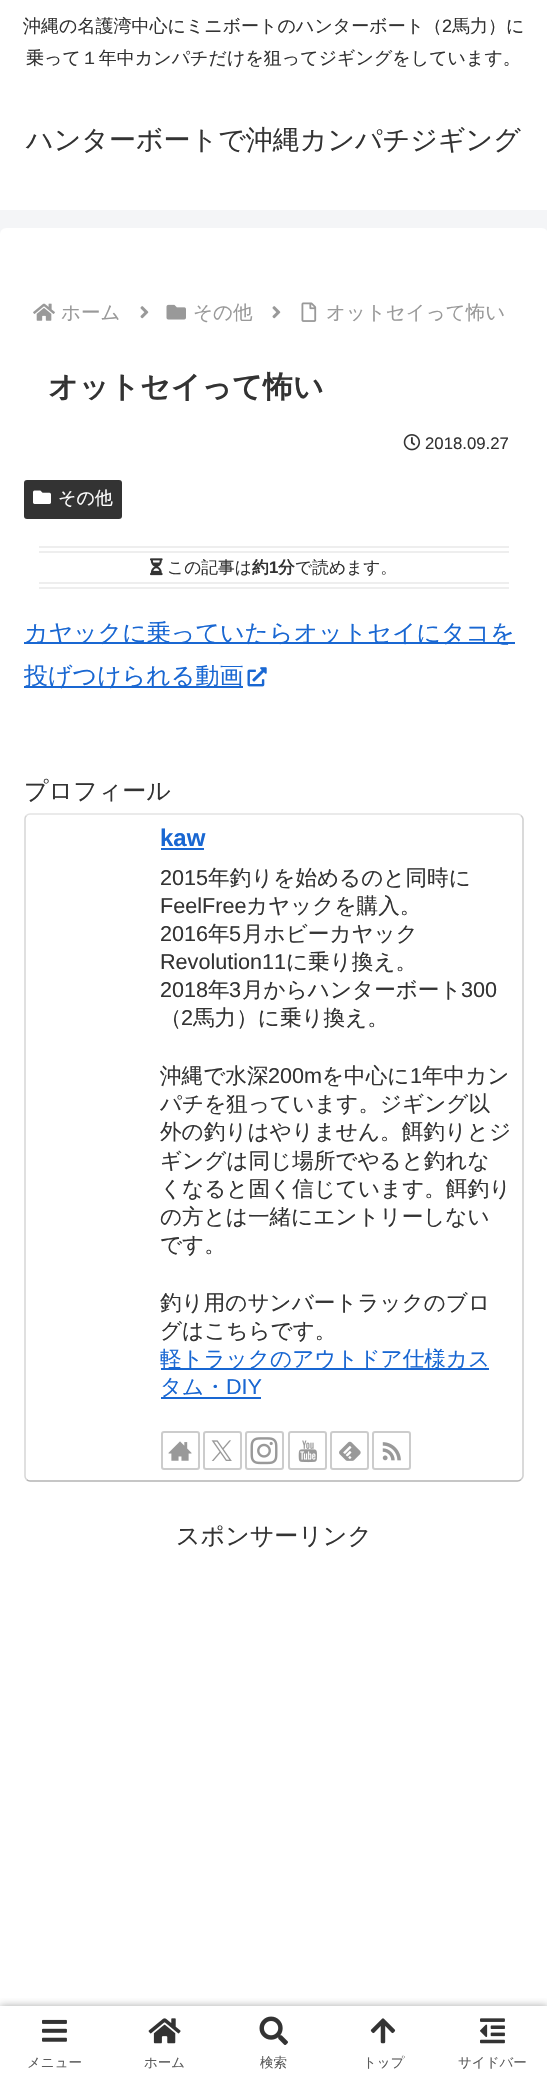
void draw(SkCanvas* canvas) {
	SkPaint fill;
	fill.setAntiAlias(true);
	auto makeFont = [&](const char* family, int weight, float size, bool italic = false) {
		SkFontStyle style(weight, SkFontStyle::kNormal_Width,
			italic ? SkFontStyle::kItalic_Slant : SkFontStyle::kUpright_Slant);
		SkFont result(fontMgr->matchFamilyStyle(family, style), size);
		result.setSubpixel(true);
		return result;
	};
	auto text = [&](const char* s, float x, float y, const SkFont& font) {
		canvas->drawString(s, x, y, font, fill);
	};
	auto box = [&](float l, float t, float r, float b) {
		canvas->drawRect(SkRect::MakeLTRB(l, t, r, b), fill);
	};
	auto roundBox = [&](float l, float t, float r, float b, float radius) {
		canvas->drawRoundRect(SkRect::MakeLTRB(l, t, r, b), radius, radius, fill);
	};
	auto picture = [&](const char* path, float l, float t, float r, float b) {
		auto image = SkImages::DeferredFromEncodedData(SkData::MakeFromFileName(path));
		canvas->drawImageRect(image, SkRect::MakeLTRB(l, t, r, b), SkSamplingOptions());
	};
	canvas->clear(0xFFF4F5F7);
	fill.setColor(0xFFFFFFFF);
	box(0, 0, 547, 210);
	roundBox(0, 228, 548, 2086, 6);
	picture("image0.png", 33, 303, 55, 321);
	picture("image1.png", 140, 306, 149, 319);
	picture("image2.png", 166, 304, 186, 320);
	picture("image1.png", 272, 306, 281, 319);
	picture("image3.png", 301, 302, 317, 322);
	picture("image4.png", 403, 434, 420, 451);
	fill.setColor(0xFF333333);
	roundBox(24, 480, 122, 519, 3);
	picture("image5.png", 33, 490, 51, 504);
	fill.setColor(0xFFEEEEEE);
	box(39, 546, 509, 548);
	box(39, 551, 509, 553);
	box(39, 582, 509, 584);
	box(39, 587, 509, 589);
	picture("image6.png", 150, 558, 163, 576);
	fill.setColor(0xFF1967D2);
	box(24, 642, 515, 644);
	box(24, 686, 243, 688);
	picture("image7.png", 247, 667, 267, 687);
	fill.setStyle(SkPaint::kStroke_Style);
	fill.setStrokeWidth(1.5f);
	fill.setColor(0xFFE3E3E3);
	canvas->drawPath(SkPathBuilder().moveTo(26.5f, 815.5f).cubicTo(27.5f, 814.5f, 28.5f, 814, 30, 814).lineTo(517.5f, 814).cubicTo(519, 814, 520, 814.5f, 521, 815.5f).detach(), fill);
	fill.setColor(0xFFCECECE);
	canvas->drawPath(SkPathBuilder().moveTo(521, 815.5f).cubicTo(522, 816.5f, 523, 817.5f, 523, 819).lineTo(523, 1476).cubicTo(523, 1477.5f, 522, 1478.5f, 521, 1479.5f).detach(), fill);
	fill.setColor(0xFFB4B4B4);
	canvas->drawPath(SkPathBuilder().moveTo(521, 1479.5f).cubicTo(520, 1480.5f, 519, 1481, 517.5f, 1481).lineTo(30, 1481).cubicTo(28.5f, 1481, 27.5f, 1480.5f, 26.5f, 1479.5f).detach(), fill);
	fill.setColor(0xFFD6D6D6);
	canvas->drawPath(SkPathBuilder().moveTo(26.5f, 1479.5f).cubicTo(25.5f, 1478.5f, 25, 1477.5f, 25, 1476).lineTo(25, 819).cubicTo(25, 817.5f, 25.5f, 816.5f, 26.5f, 815.5f).detach(), fill);
	fill.setStyle(SkPaint::kFill_Style);
	fill.setColor(0xFF1967D2);
	box(161, 848, 204, 850);
	box(161, 1368, 489, 1370);
	box(161, 1397, 261, 1399);
	fill.setStyle(SkPaint::kStroke_Style);
	fill.setStrokeWidth(2);
	fill.setColor(0xFFCCCCCC);
	canvas->drawRoundRect(SkRect::MakeLTRB(162, 1432, 199, 1469), 2, 2, fill);
	picture("image8.png", 168, 1441, 192, 1461);
	canvas->drawRoundRect(SkRect::MakeLTRB(204, 1432, 241, 1469), 2, 2, fill);
	picture("image9.png", 211, 1440, 232, 1461);
	canvas->drawRoundRect(SkRect::MakeLTRB(246, 1432, 283, 1469), 2, 2, fill);
	picture("image10.png", 250, 1437, 278, 1465);
	canvas->drawRoundRect(SkRect::MakeLTRB(289, 1432, 326, 1469), 2, 2, fill);
	picture("image11.png", 298, 1440, 317, 1463);
	canvas->drawRoundRect(SkRect::MakeLTRB(331, 1432, 368, 1469), 2, 2, fill);
	picture("image12.png", 339, 1441, 361, 1461);
	canvas->drawRoundRect(SkRect::MakeLTRB(373, 1432, 410, 1469), 2, 2, fill);
	picture("image13.png", 382, 1442, 401, 1461);
	canvas->save();
	canvas->clipRect(SkRect::MakeLTRB(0, 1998, 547, 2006));
	fill.setStyle(SkPaint::kFill_Style);
	fill.setColor(0xFFA9A9A9);
	fill.setMaskFilter(SkMaskFilter::MakeBlur(kNormal_SkBlurStyle, 4));
	canvas->drawRect(SkRect::MakeLTRB(0, 2006, 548, 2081), fill);
	fill.setMaskFilter(nullptr);
	canvas->restore();
	picture("image14.png", 42, 2019, 67, 2042);
	picture("image15.png", 148, 2018, 181, 2044);
	picture("image16.png", 259, 2016, 288, 2045);
	picture("image17.png", 370, 2018, 396, 2044);
	picture("image18.png", 480, 2018, 505, 2044);
	auto font1 = makeFont("WenQuanYi Zen Hei", 500, 18);
	fill.setColor(0xFF333333);
	text("沖縄の名護湾中心にミニボートのハンターボート（", 23, 32, font1);
	auto font2 = makeFont("Liberation Sans", 400, 18);
	text("2", 442, 32, font2);
	text("馬力）に", 452, 32, font1);
	text("乗って１年中カンパチだけを狙ってジギングをしています。", 26, 64, font1);
	auto font3 = makeFont("WenQuanYi Zen Hei", 500, 27);
	text("ハンターボートで沖縄カンパチジギング", 26, 149, font3);
	auto font4 = makeFont("WenQuanYi Zen Hei", 500, 19.5f);
	fill.setColor(0xFF999999);
	text("ホーム", 61, 319, font4);
	text("その他", 193, 319, font4);
	text("オットセイって怖い", 326, 319, font4);
	auto font5 = makeFont("WenQuanYi Zen Hei", 700, 30);
	fill.setColor(0xFF333333);
	text("オットセイって怖い", 48, 397, font5);
	auto font6 = makeFont("Liberation Sans", 400, 16.75f);
	text("2018.09.27", 425, 449, font6);
	fill.setColor(0xFFFFFFFF);
	text("その他", 58, 504, font1);
	auto font7 = makeFont("WenQuanYi Zen Hei", 500, 16.75f);
	fill.setColor(0xFF333333);
	text("この記事は", 167, 573, font7);
	auto font8 = makeFont("WenQuanYi Zen Hei", 700, 16.75f);
	text("約", 252, 573, font8);
	auto font9 = makeFont("Liberation Sans", 700, 16.75f);
	text("1", 269, 573, font9);
	text("分", 278, 573, font8);
	text("で読めます。", 295, 573, font7);
	auto font10 = makeFont("WenQuanYi Zen Hei", 500, 24);
	fill.setColor(0xFF1967D2);
	text("カヤックに乗っていたらオットセイにタコを", 24, 641, font10);
	text("投げつけられる動画", 24, 684, font10);
	fill.setColor(0xFF333333);
	text("プロフィール", 24, 799, font10);
	auto font11 = makeFont("Liberation Sans", 700, 24);
	fill.setColor(0xFF1967D2);
	text("kaw", 160, 846, font11);
	auto font12 = makeFont("Liberation Sans", 400, 21.6f);
	fill.setColor(0xFF333333);
	text("2015", 160, 885, font12);
	auto font13 = makeFont("WenQuanYi Zen Hei", 500, 21.6f);
	text("年釣りを始めるのと同時に", 208, 885, font13);
	text("FeelFree", 160, 913, font12);
	text("カヤックを購入。", 246, 913, font13);
	text("2016", 160, 941, font12);
	text("年", 208, 941, font13);
	text("5", 229, 941, font12);
	text("月ホビーカヤック", 242, 941, font13);
	text("Revolution11", 160, 969, font12);
	text("に乗り換え。", 286, 969, font13);
	text("2018", 160, 997, font12);
	text("年", 208, 997, font13);
	text("3", 229, 997, font12);
	text("月からハンターボート", 242, 997, font13);
	text("300", 461, 997, font12);
	text("（", 160, 1025, font13);
	text("2", 181, 1025, font12);
	text("馬力）に乗り換え。", 193, 1025, font13);
	text("沖縄で水深", 160, 1083, font13);
	text("200m", 268, 1083, font12);
	text("を中心に", 322, 1083, font13);
	text("1", 410, 1083, font12);
	text("年中カン", 422, 1083, font13);
	text("パチを狙っています。ジギング以", 160, 1111, font13);
	text("外の釣りはやりません。餌釣りとジ", 160, 1139, font13);
	text("ギングは同じ場所でやると釣れな", 160, 1168, font13);
	text("くなると固く信じています。餌釣り", 160, 1196, font13);
	text("の方とは一緒にエントリーしない", 160, 1224, font13);
	text("です。", 160, 1252, font13);
	text("釣り用のサンバートラックのブロ", 160, 1310, font13);
	text("グはこちらです。", 160, 1338, font13);
	fill.setColor(0xFF1967D2);
	text("軽トラックのアウトドア仕様カス", 160, 1366, font13);
	text("タム・", 160, 1394, font13);
	text("DIY", 226, 1394, font12);
	fill.setColor(0xFF333333);
	text("スポンサーリンク", 176, 1544, font10);
	auto font14 = makeFont("WenQuanYi Zen Hei", 500, 13.5f);
	fill.setColor(0xFF5C5C5C);
	text("メニュー", 27, 2067, font14);
	text("ホーム", 144, 2067, font14);
	text("検索", 260, 2067, font14);
	text("トップ", 363, 2067, font14);
	text("サイドバー", 458, 2067, font14);
}
